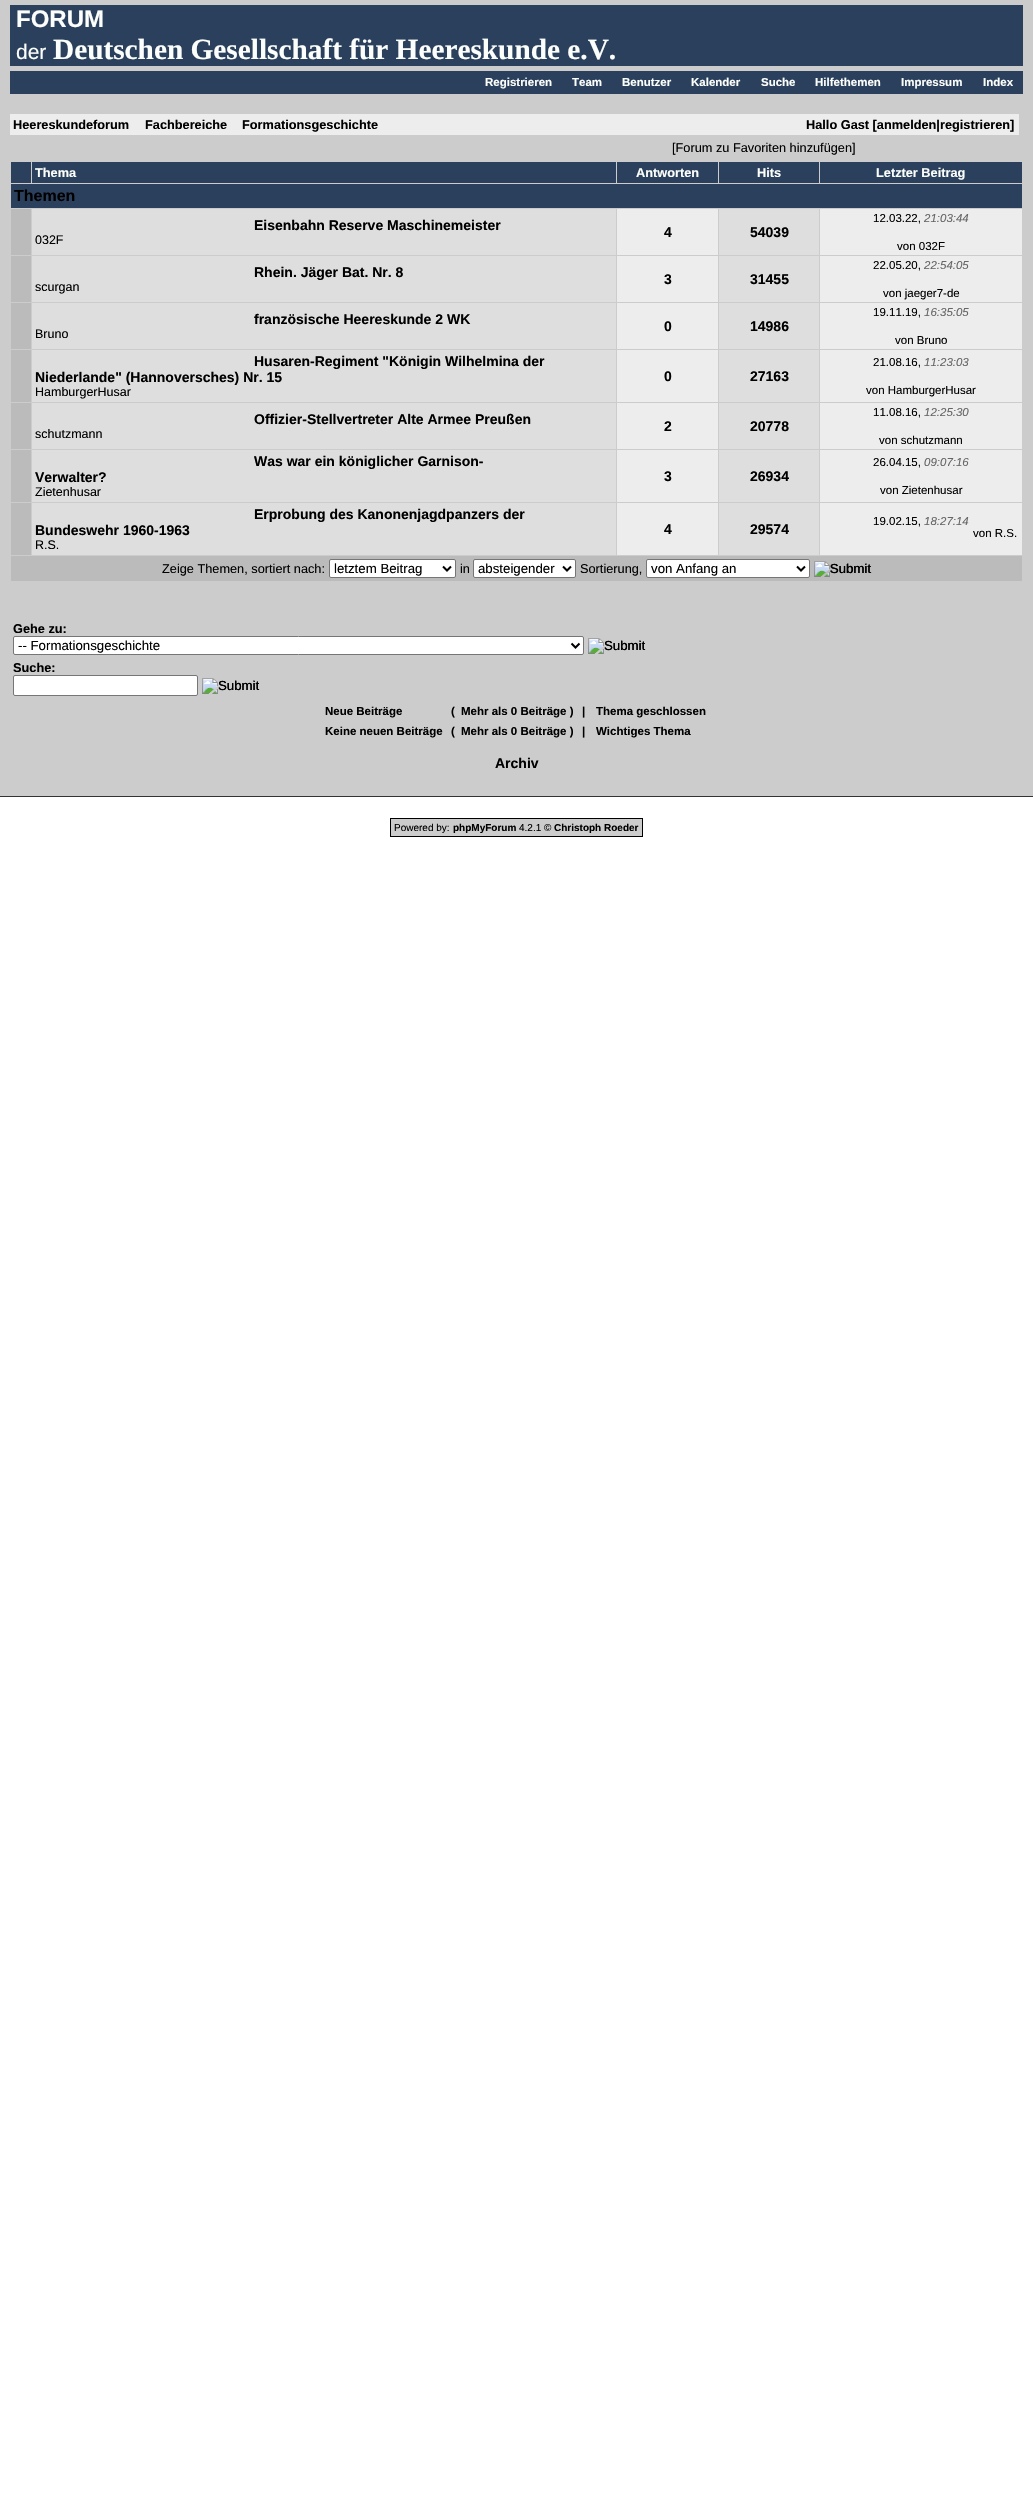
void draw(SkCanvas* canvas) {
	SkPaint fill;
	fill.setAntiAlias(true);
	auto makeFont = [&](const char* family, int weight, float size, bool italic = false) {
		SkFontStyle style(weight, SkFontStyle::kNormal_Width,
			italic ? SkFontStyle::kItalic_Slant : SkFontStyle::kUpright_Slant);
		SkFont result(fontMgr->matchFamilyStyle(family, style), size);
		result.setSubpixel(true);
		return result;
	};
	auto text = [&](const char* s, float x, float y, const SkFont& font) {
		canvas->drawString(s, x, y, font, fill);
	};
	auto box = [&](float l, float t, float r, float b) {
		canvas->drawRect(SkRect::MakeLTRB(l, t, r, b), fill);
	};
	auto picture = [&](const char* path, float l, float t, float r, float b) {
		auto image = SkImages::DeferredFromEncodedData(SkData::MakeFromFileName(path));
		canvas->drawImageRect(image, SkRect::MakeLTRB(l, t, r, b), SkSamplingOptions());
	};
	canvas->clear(0xFFFFFFFF);
	fill.setColor(0xFFCCCCCC);
	box(0, 0, 1033, 796);
	fill.setColor(0xFF2B405D);
	box(10, 5, 1023, 66);
	box(10, 71, 1023, 94);
	fill.setColor(0xFFEDEDED);
	box(10, 114, 1019, 135);
	fill.setColor(0xFF2B405D);
	box(11, 162, 31, 183);
	box(32, 162, 616, 183);
	box(617, 162, 718, 183);
	box(719, 162, 819, 183);
	box(820, 162, 1022, 183);
	box(11, 184, 1022, 208);
	fill.setColor(0xFFBBBBBB);
	box(11, 209, 31, 255);
	fill.setColor(0xFFDEDEDE);
	box(32, 209, 616, 255);
	fill.setColor(0xFFEDEDED);
	box(617, 209, 718, 255);
	fill.setColor(0xFFDEDEDE);
	box(719, 209, 819, 255);
	fill.setColor(0xFFEDEDED);
	box(820, 209, 1022, 255);
	fill.setColor(0xFFBBBBBB);
	box(11, 256, 31, 302);
	fill.setColor(0xFFDEDEDE);
	box(32, 256, 616, 302);
	fill.setColor(0xFFEDEDED);
	box(617, 256, 718, 302);
	fill.setColor(0xFFDEDEDE);
	box(719, 256, 819, 302);
	fill.setColor(0xFFEDEDED);
	box(820, 256, 1022, 302);
	fill.setColor(0xFFBBBBBB);
	box(11, 303, 31, 349);
	fill.setColor(0xFFDEDEDE);
	box(32, 303, 616, 349);
	fill.setColor(0xFFEDEDED);
	box(617, 303, 718, 349);
	fill.setColor(0xFFDEDEDE);
	box(719, 303, 819, 349);
	fill.setColor(0xFFEDEDED);
	box(820, 303, 1022, 349);
	fill.setColor(0xFFBBBBBB);
	box(11, 350, 31, 402);
	fill.setColor(0xFFDEDEDE);
	box(32, 350, 616, 402);
	fill.setColor(0xFFEDEDED);
	box(617, 350, 718, 402);
	fill.setColor(0xFFDEDEDE);
	box(719, 350, 819, 402);
	fill.setColor(0xFFEDEDED);
	box(820, 350, 1022, 402);
	fill.setColor(0xFFBBBBBB);
	box(11, 403, 31, 449);
	fill.setColor(0xFFDEDEDE);
	box(32, 403, 616, 449);
	fill.setColor(0xFFEDEDED);
	box(617, 403, 718, 449);
	fill.setColor(0xFFDEDEDE);
	box(719, 403, 819, 449);
	fill.setColor(0xFFEDEDED);
	box(820, 403, 1022, 449);
	fill.setColor(0xFFBBBBBB);
	box(11, 450, 31, 502);
	fill.setColor(0xFFDEDEDE);
	box(32, 450, 616, 502);
	fill.setColor(0xFFEDEDED);
	box(617, 450, 718, 502);
	fill.setColor(0xFFDEDEDE);
	box(719, 450, 819, 502);
	fill.setColor(0xFFEDEDED);
	box(820, 450, 1022, 502);
	fill.setColor(0xFFBBBBBB);
	box(11, 503, 31, 555);
	fill.setColor(0xFFDEDEDE);
	box(32, 503, 616, 555);
	fill.setColor(0xFFEDEDED);
	box(617, 503, 718, 555);
	fill.setColor(0xFFDEDEDE);
	box(719, 503, 819, 555);
	fill.setColor(0xFFEDEDED);
	box(820, 503, 1022, 555);
	fill.setColor(0xFFBBBBBB);
	box(11, 556, 1022, 581);
	fill.setColor(0xFFFFFFFF);
	canvas->drawRoundRect(SkRect::MakeLTRB(329.5f, 559.5f, 455.5f, 577.5f), 1.5f, 1.5f, fill);
	fill.setStyle(SkPaint::kStroke_Style);
	fill.setStrokeWidth(1);
	fill.setColor(0xFF767676);
	canvas->drawRoundRect(SkRect::MakeLTRB(329.5f, 559.5f, 455.5f, 577.5f), 1.5f, 1.5f, fill);
	fill.setStrokeWidth(2);
	fill.setColor(0xFF000000);
	canvas->drawPath(SkPathBuilder().moveTo(443, 566.5f).lineTo(447, 570.5f).lineTo(451, 566.5f).detach(), fill);
	fill.setStyle(SkPaint::kFill_Style);
	fill.setColor(0xFFFFFFFF);
	canvas->drawRoundRect(SkRect::MakeLTRB(473.5f, 559.5f, 575.5f, 577.5f), 1.5f, 1.5f, fill);
	fill.setStyle(SkPaint::kStroke_Style);
	fill.setStrokeWidth(1);
	fill.setColor(0xFF767676);
	canvas->drawRoundRect(SkRect::MakeLTRB(473.5f, 559.5f, 575.5f, 577.5f), 1.5f, 1.5f, fill);
	fill.setStrokeWidth(2);
	fill.setColor(0xFF000000);
	canvas->drawPath(SkPathBuilder().moveTo(563, 566.5f).lineTo(567, 570.5f).lineTo(571, 566.5f).detach(), fill);
	fill.setStyle(SkPaint::kFill_Style);
	fill.setColor(0xFFFFFFFF);
	canvas->drawRoundRect(SkRect::MakeLTRB(646.5f, 559.5f, 809.5f, 577.5f), 1.5f, 1.5f, fill);
	fill.setStyle(SkPaint::kStroke_Style);
	fill.setStrokeWidth(1);
	fill.setColor(0xFF767676);
	canvas->drawRoundRect(SkRect::MakeLTRB(646.5f, 559.5f, 809.5f, 577.5f), 1.5f, 1.5f, fill);
	fill.setStrokeWidth(2);
	fill.setColor(0xFF000000);
	canvas->drawPath(SkPathBuilder().moveTo(797, 566.5f).lineTo(801, 570.5f).lineTo(805, 566.5f).detach(), fill);
	picture("image0.png", 814, 561, 871, 577);
	fill.setStyle(SkPaint::kFill_Style);
	fill.setColor(0xFFFFFFFF);
	canvas->drawRoundRect(SkRect::MakeLTRB(13.5f, 636.5f, 583.5f, 654.5f), 1.5f, 1.5f, fill);
	fill.setStyle(SkPaint::kStroke_Style);
	fill.setStrokeWidth(1);
	fill.setColor(0xFF767676);
	canvas->drawRoundRect(SkRect::MakeLTRB(13.5f, 636.5f, 583.5f, 654.5f), 1.5f, 1.5f, fill);
	fill.setStrokeWidth(2);
	fill.setColor(0xFF000000);
	canvas->drawPath(SkPathBuilder().moveTo(571.5f, 643.5f).lineTo(575.5f, 647.5f).lineTo(579.5f, 643.5f).detach(), fill);
	picture("image1.png", 588, 638, 645, 654);
	fill.setStyle(SkPaint::kFill_Style);
	fill.setColor(0xFFFFFFFF);
	canvas->drawRoundRect(SkRect::MakeLTRB(13.5f, 675.5f, 197.5f, 695.5f), 1.5f, 1.5f, fill);
	fill.setStyle(SkPaint::kStroke_Style);
	fill.setStrokeWidth(1);
	fill.setColor(0xFF767676);
	canvas->drawRoundRect(SkRect::MakeLTRB(13.5f, 675.5f, 197.5f, 695.5f), 1.5f, 1.5f, fill);
	picture("image1.png", 202, 678, 259, 694);
	fill.setStyle(SkPaint::kFill_Style);
	fill.setColor(0xFF333333);
	box(0, 796, 1033, 797);
	fill.setStyle(SkPaint::kStroke_Style);
	fill.setColor(0xFF000000);
	canvas->drawRect(SkRect::MakeLTRB(390.5f, 818.5f, 642.5f, 836.5f), fill);
	fill.setStyle(SkPaint::kFill_Style);
	fill.setColor(0xFFCCCCCC);
	box(391, 819, 642, 836);
	auto font1 = makeFont("Liberation Sans", 700, 24);
	fill.setColor(0xFFFCFEFB);
	text("FORUM", 16, 27, font1);
	auto font2 = makeFont("Liberation Sans", 400, 21);
	text("der", 16, 59, font2);
	auto font3 = makeFont("Liberation Serif", 700, 29.3f);
	text("Deutschen Gesellschaft für Heereskunde e.V.", 53, 59, font3);
	auto font4 = makeFont("Liberation Sans", 700, 11.5f);
	text("Registrieren", 485, 86, font4);
	text("Team", 572, 86, font4);
	text("Benutzer", 622, 86, font4);
	text("Kalender", 691, 86, font4);
	text("Suche", 761, 86, font4);
	text("Hilfethemen", 815, 86, font4);
	text("Impressum", 901, 86, font4);
	text("Index", 983, 86, font4);
	auto font5 = makeFont("Liberation Sans", 700, 12.75f);
	fill.setColor(0xFF000000);
	text("Heereskundeforum", 13, 129, font5);
	text("Fachbereiche", 145, 129, font5);
	text("Formationsgeschichte", 242, 129, font5);
	text("Hallo Gast [anmelden|registrieren]", 806, 129, font5);
	auto font6 = makeFont("Liberation Sans", 400, 12.75f);
	text("[Forum zu Favoriten hinzufügen]", 672, 152, font6);
	fill.setColor(0xFFFCFEFB);
	text("Thema", 35, 177, font5);
	text("Antworten", 636, 177, font5);
	text("Hits", 757, 177, font5);
	text("Letzter Beitrag", 876, 177, font5);
	auto font7 = makeFont("Liberation Sans", 700, 16);
	fill.setColor(0xFF000000);
	text("Themen", 14, 201, font7);
	auto font8 = makeFont("Liberation Sans", 700, 14);
	text("Eisenbahn Reserve Maschinemeister", 254, 230, font8);
	auto font9 = makeFont("Liberation Sans", 400, 12.5f);
	text("032F", 35, 244, font9);
	text("4", 664, 237, font8);
	text("54039", 750, 237, font8);
	auto font10 = makeFont("Liberation Sans", 400, 11.5f);
	text("12.03.22,", 873, 222, font10);
	auto font11 = makeFont("Liberation Sans", 400, 11.5f, true);
	fill.setColor(0xFF666666);
	text("21:03:44", 924, 222, font11);
	fill.setColor(0xFF000000);
	text("von 032F", 897, 250, font10);
	text("Rhein. Jäger Bat. Nr. 8", 254, 277, font8);
	text("scurgan", 35, 291, font9);
	text("3", 664, 284, font8);
	text("31455", 750, 284, font8);
	text("22.05.20,", 873, 269, font10);
	fill.setColor(0xFF666666);
	text("22:54:05", 924, 269, font11);
	fill.setColor(0xFF000000);
	text("von jaeger7-de", 883, 297, font10);
	text("französische Heereskunde 2 WK", 254, 324, font8);
	text("Bruno", 35, 338, font9);
	text("0", 664, 331, font8);
	text("14986", 750, 331, font8);
	text("19.11.19,", 873, 316, font10);
	fill.setColor(0xFF666666);
	text("16:35:05", 924, 316, font11);
	fill.setColor(0xFF000000);
	text("von Bruno", 895, 344, font10);
	text("Husaren-Regiment \"Königin Wilhelmina der", 254, 366, font8);
	text("Niederlande\" (Hannoversches) Nr. 15", 35, 382, font8);
	text("HamburgerHusar", 35, 396, font9);
	text("0", 664, 381, font8);
	text("27163", 750, 381, font8);
	text("21.08.16,", 873, 366, font10);
	fill.setColor(0xFF666666);
	text("11:23:03", 924, 366, font11);
	fill.setColor(0xFF000000);
	text("von HamburgerHusar", 866, 394, font10);
	text("Offizier-Stellvertreter Alte Armee Preußen", 254, 424, font8);
	text("schutzmann", 35, 438, font9);
	text("2", 664, 431, font8);
	text("20778", 750, 431, font8);
	text("11.08.16,", 873, 416, font10);
	fill.setColor(0xFF666666);
	text("12:25:30", 924, 416, font11);
	fill.setColor(0xFF000000);
	text("von schutzmann", 879, 444, font10);
	text("Was war ein königlicher Garnison-", 254, 466, font8);
	text("Verwalter?", 35, 482, font8);
	text("Zietenhusar", 35, 496, font9);
	text("3", 664, 481, font8);
	text("26934", 750, 481, font8);
	text("26.04.15,", 873, 466, font10);
	fill.setColor(0xFF666666);
	text("09:07:16", 924, 466, font11);
	fill.setColor(0xFF000000);
	text("von Zietenhusar", 880, 494, font10);
	text("Erprobung des Kanonenjagdpanzers der", 254, 519, font8);
	text("Bundeswehr 1960-1963", 35, 535, font8);
	text("R.S.", 35, 549, font9);
	text("4", 664, 534, font8);
	text("29574", 750, 534, font8);
	text("19.02.15,", 873, 525, font10);
	fill.setColor(0xFF666666);
	text("18:27:14", 924, 525, font11);
	fill.setColor(0xFF000000);
	text("von R.S.", 973, 537, font10);
	text("Zeige Themen, sortiert nach:", 162, 573, font6);
	auto font12 = makeFont("Liberation Sans", 400, 13.25f);
	text("letztem Beitrag", 334, 573, font12);
	text("in", 460, 573, font6);
	text("absteigender", 478, 573, font12);
	text("Sortierung,", 580, 573, font6);
	text("von Anfang an", 651, 573, font12);
	text("Submit", 830, 573, font12);
	text("Gehe zu:", 13, 633, font5);
	text("-- Formationsgeschichte", 18, 650, font12);
	text("Submit", 604, 650, font12);
	text("Suche:", 13, 672, font5);
	text("Submit", 218, 690, font12);
	text("Neue Beiträge", 325, 715, font4);
	text("(", 451, 715, font4);
	text("Mehr als 0 Beiträge )", 461, 715, font4);
	text("|", 582, 715, font4);
	text("Thema geschlossen", 596, 715, font4);
	text("Keine neuen Beiträge", 325, 735, font4);
	text("(", 451, 735, font4);
	text("Mehr als 0 Beiträge )", 461, 735, font4);
	text("|", 582, 735, font4);
	text("Wichtiges Thema", 596, 735, font4);
	text("Archiv", 495, 768, font8);
	auto font13 = makeFont("Liberation Sans", 400, 10);
	text("Powered by:", 394, 831, font13);
	auto font14 = makeFont("Liberation Sans", 700, 10);
	text("phpMyForum", 453, 831, font14);
	text("4.2.1 ©", 519, 831, font13);
	text("Christoph Roeder", 554, 831, font14);
}
